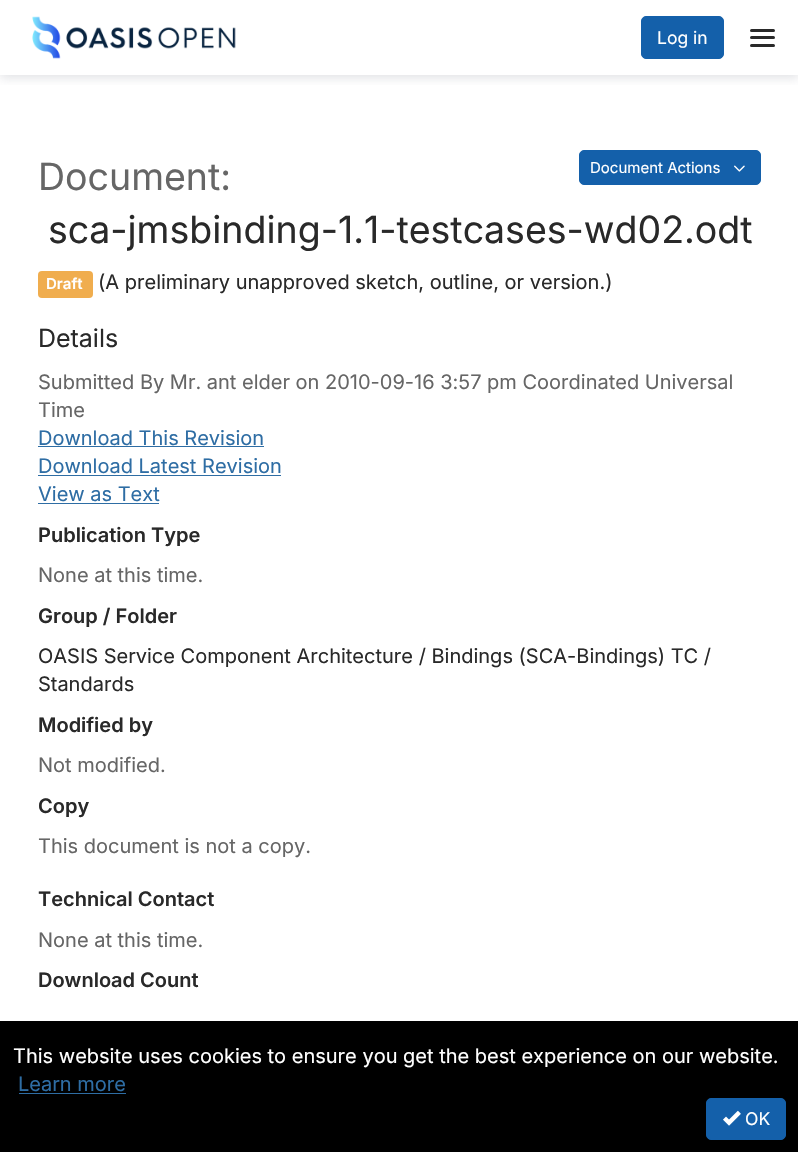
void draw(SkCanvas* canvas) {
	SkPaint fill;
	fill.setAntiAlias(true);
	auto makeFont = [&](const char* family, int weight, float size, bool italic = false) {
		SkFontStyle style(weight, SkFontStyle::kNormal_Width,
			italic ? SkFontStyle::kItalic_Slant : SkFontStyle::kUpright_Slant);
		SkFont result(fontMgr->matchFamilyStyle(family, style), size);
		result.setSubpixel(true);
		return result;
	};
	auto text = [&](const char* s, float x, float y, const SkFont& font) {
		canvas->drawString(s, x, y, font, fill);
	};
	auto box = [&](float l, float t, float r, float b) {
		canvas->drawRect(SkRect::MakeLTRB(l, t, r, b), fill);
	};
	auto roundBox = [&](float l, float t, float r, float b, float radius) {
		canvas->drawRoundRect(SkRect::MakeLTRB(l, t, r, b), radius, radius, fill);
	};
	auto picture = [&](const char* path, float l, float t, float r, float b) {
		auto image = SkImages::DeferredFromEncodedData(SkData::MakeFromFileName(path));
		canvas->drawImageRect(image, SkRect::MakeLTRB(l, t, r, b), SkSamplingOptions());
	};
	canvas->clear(0xFFFFFFFF);
	canvas->save();
	canvas->clipRect(SkRect::MakeLTRB(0, 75, 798, 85));
	fill.setColor(0x3D838791);
	fill.setMaskFilter(SkMaskFilter::MakeBlur(kNormal_SkBlurStyle, 5));
	canvas->drawRect(SkRect::MakeLTRB(0, 3, 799, 78), fill);
	fill.setMaskFilter(nullptr);
	canvas->restore();
	picture("image0.png", 32, 16, 236, 59);
	fill.setColor(0xFF1460AA);
	canvas->drawRoundRect(SkRect::MakeLTRB(641.5f, 16.5f, 723.5f, 58.5f), 4.5f, 4.5f, fill);
	fill.setStyle(SkPaint::kStroke_Style);
	fill.setStrokeWidth(1);
	canvas->drawRoundRect(SkRect::MakeLTRB(641.5f, 16.5f, 723.5f, 58.5f), 4.5f, 4.5f, fill);
	fill.setStyle(SkPaint::kFill_Style);
	fill.setColor(0xFF292929);
	roundBox(750, 29, 775, 32, 1.5f);
	roundBox(750, 36, 775, 39, 1.5f);
	roundBox(750, 44, 775, 47, 1.5f);
	fill.setColor(0xFF1460AA);
	canvas->drawRoundRect(SkRect::MakeLTRB(579.5f, 150.5f, 760.5f, 184.5f), 4.5f, 4.5f, fill);
	fill.setStyle(SkPaint::kStroke_Style);
	canvas->drawRoundRect(SkRect::MakeLTRB(579.5f, 150.5f, 760.5f, 184.5f), 4.5f, 4.5f, fill);
	picture("image1.png", 734, 165, 745, 172);
	fill.setStyle(SkPaint::kFill_Style);
	fill.setColor(0xFFF0AD4E);
	roundBox(38, 271, 93, 298, 4);
	fill.setColor(0xFF2E6DA4);
	box(38, 446, 264, 447);
	box(38, 475, 281, 476);
	box(38, 503, 159, 504);
	fill.setColor(0xFF000000);
	box(0, 1021, 798, 1152);
	fill.setColor(0xFF2E6DA4);
	box(19, 1093, 126, 1094);
	fill.setColor(0xFF1460AA);
	canvas->drawRoundRect(SkRect::MakeLTRB(706.5f, 1098.5f, 785.5f, 1139.5f), 4.5f, 4.5f, fill);
	fill.setStyle(SkPaint::kStroke_Style);
	canvas->drawRoundRect(SkRect::MakeLTRB(706.5f, 1098.5f, 785.5f, 1139.5f), 4.5f, 4.5f, fill);
	picture("image2.png", 723, 1110, 741, 1126);
	auto font1 = makeFont("Inter", 400, 17.5f);
	fill.setStyle(SkPaint::kFill_Style);
	fill.setColor(0xFFFFFFFF);
	text("Log in", 657, 44, font1);
	auto font2 = makeFont("Inter", 400, 15);
	text("Document Actions", 590, 173, font2);
	auto font3 = makeFont("Inter", 400, 37.5f);
	fill.setColor(0xFF666666);
	text("Document:", 38, 190, font3);
	fill.setColor(0xFF292929);
	text("sca-jmsbinding-1.1-testcases-wd02.odt", 48, 243, font3);
	auto font4 = makeFont("Inter", 600, 15);
	fill.setColor(0xFFFFFFFF);
	text("Draft", 46, 289, font4);
	auto font5 = makeFont("Inter", 400, 20);
	fill.setColor(0xFF292929);
	text("(A preliminary unapproved sketch, outline, or version.)", 98, 289, font5);
	auto font6 = makeFont("Inter", 400, 25);
	text("Details", 38, 347, font6);
	fill.setColor(0xFF666666);
	text("Submitted By Mr. ant elder on 2010-09-16 3:57 pm Coordinated Universal", 38, 389, font5);
	text("Time", 38, 417, font5);
	fill.setColor(0xFF2E6DA4);
	text("Download This Revision", 38, 445, font5);
	text("Download Latest Revision", 38, 473, font5);
	text("View as Text", 38, 501, font5);
	auto font7 = makeFont("Inter", 600, 20);
	fill.setColor(0xFF292929);
	text("Publication Type", 38, 542, font7);
	fill.setColor(0xFF666666);
	text("None at this time.", 38, 582, font5);
	fill.setColor(0xFF292929);
	text("Group / Folder", 38, 623, font7);
	text("OASIS Service Component Architecture / Bindings (SCA-Bindings) TC /", 38, 663, font5);
	text("Standards", 38, 691, font5);
	text("Modified by", 38, 732, font7);
	fill.setColor(0xFF666666);
	text("Not modified.", 38, 772, font5);
	fill.setColor(0xFF292929);
	text("Copy", 38, 813, font7);
	fill.setColor(0xFF666666);
	text("This document is not a copy.", 38, 853, font5);
	fill.setColor(0xFF292929);
	text("Technical Contact", 38, 906, font7);
	fill.setColor(0xFF666666);
	text("None at this time.", 38, 947, font5);
	fill.setColor(0xFF292929);
	text("Download Count", 38, 987, font7);
	fill.setColor(0xFFFFFFFF);
	text("This website uses cookies to ensure you get the best experience on our website.", 13, 1063, font5);
	fill.setColor(0xFF2E6DA4);
	text("Learn more", 18, 1091, font5);
	fill.setColor(0xFFFFFFFF);
	text("OK", 745, 1125, font1);
}
